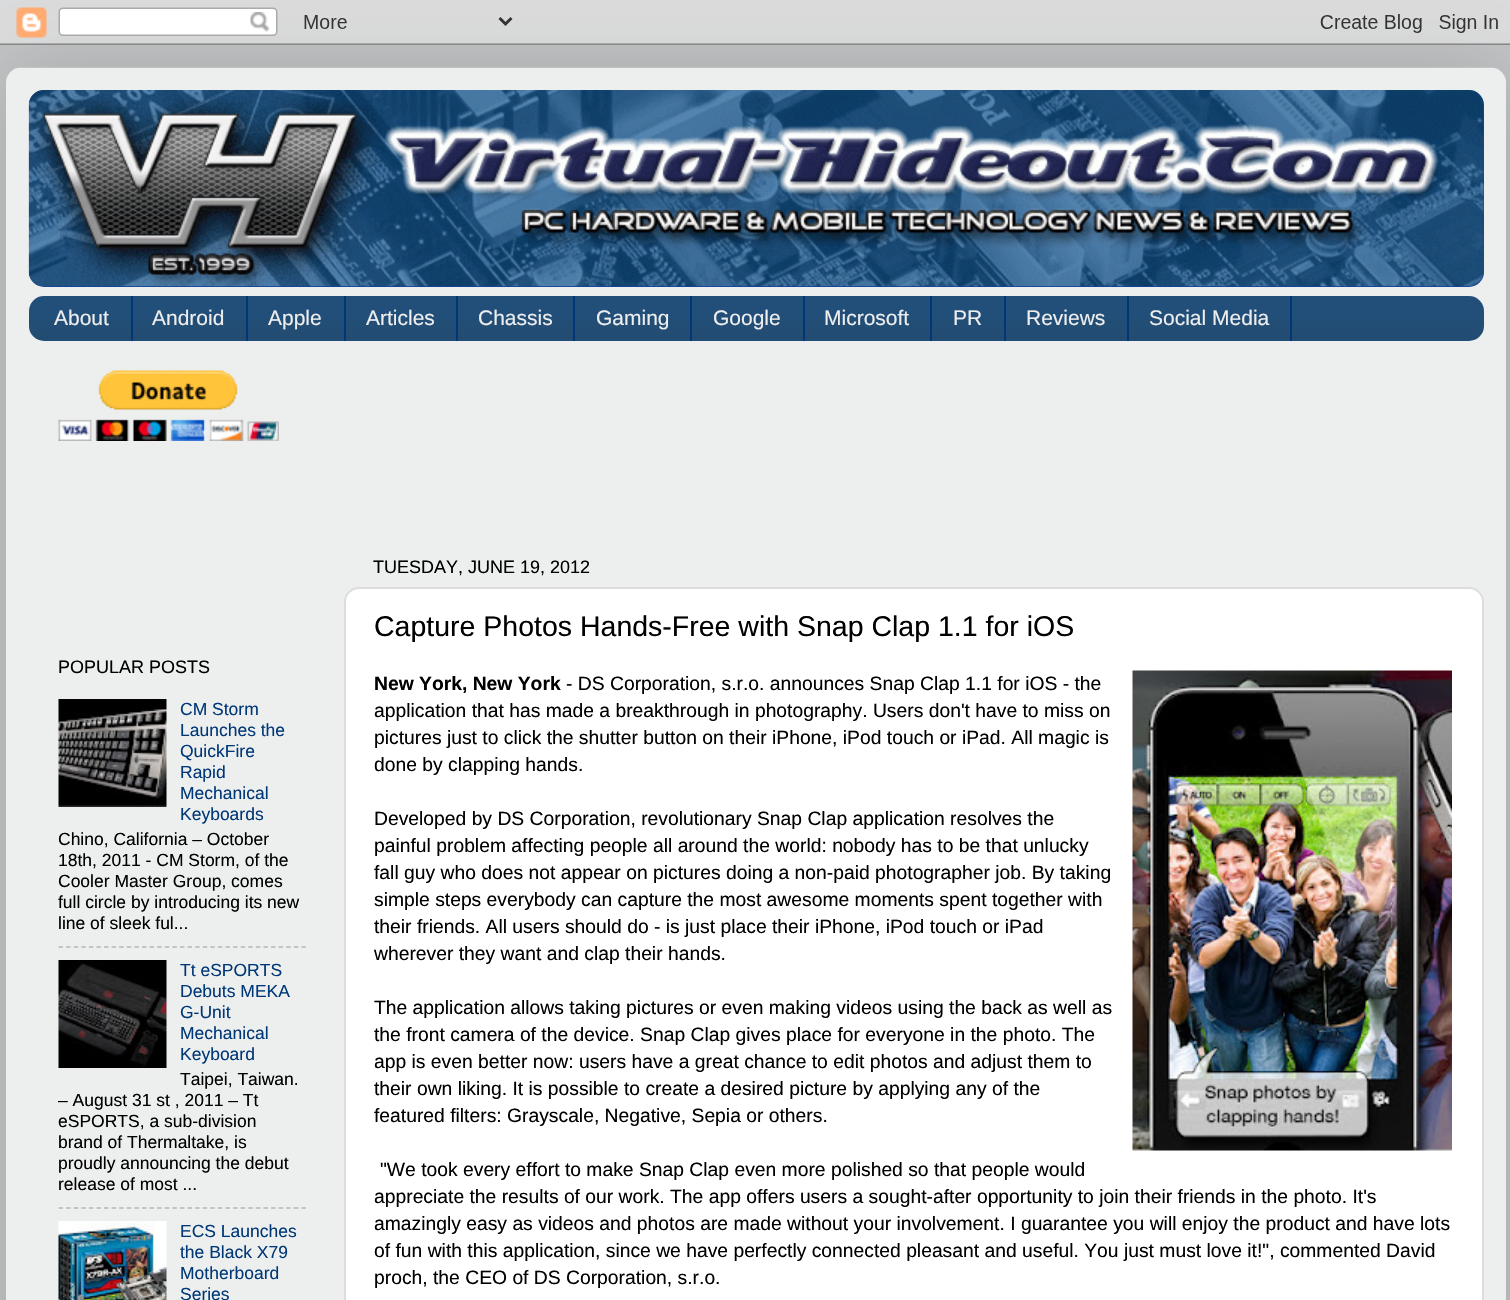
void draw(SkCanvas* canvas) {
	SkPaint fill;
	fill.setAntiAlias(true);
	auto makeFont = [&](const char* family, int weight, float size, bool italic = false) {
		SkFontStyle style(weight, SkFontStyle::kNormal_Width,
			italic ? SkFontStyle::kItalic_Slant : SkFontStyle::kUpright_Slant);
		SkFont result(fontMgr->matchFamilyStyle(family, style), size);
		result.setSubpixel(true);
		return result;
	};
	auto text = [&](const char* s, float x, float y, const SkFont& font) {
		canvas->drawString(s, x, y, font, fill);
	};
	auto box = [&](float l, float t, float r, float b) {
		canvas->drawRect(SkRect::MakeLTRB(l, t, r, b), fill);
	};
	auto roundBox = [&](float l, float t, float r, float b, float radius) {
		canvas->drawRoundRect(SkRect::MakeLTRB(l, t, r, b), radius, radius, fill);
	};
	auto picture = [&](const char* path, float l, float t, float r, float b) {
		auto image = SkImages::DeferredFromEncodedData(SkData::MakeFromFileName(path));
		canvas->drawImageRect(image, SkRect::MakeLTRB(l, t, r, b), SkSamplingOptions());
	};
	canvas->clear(0xFFC3C4C5);
	canvas->save();
	canvas->clipPath(SkPathBuilder(SkPathFillType::kEvenOdd).moveTo(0, 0).lineTo(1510, 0).lineTo(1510, 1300).lineTo(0, 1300).close().moveTo(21, 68).lineTo(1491, 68).cubicTo(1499.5f, 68, 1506, 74.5f, 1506, 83).lineTo(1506, 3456).cubicTo(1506, 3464.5f, 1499.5f, 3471, 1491, 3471).lineTo(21, 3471).cubicTo(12.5f, 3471, 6, 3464.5f, 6, 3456).lineTo(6, 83).cubicTo(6, 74.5f, 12.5f, 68, 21, 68).close().detach(), true);
	fill.setColor(0x26000000);
	fill.setMaskFilter(SkMaskFilter::MakeBlur(kNormal_SkBlurStyle, 41));
	canvas->drawRoundRect(SkRect::MakeLTRB(6, 68, 1506, 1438), 15, 15, fill);
	fill.setMaskFilter(nullptr);
	canvas->restore();
	picture("image0.png", 0, 0, 1510, 45);
	picture("image1.png", 6, 67, 1506, 1300);
	fill.setColor(0xFF114499);
	roundBox(29, 90, 1484, 287, 15);
	picture("image2.png", 29, 90, 1484, 155);
	picture("image3.png", 28, 90, 1484, 287);
	fill.setColor(0xFF214F79);
	roundBox(29, 296, 1484, 341, 15);
	picture("image4.png", 29, 319, 1483, 340);
	fill.setColor(0xFF003877);
	box(131, 296, 133, 341);
	box(246, 296, 248, 341);
	box(344, 296, 346, 341);
	box(456, 296, 458, 341);
	box(573, 296, 575, 341);
	box(690, 296, 692, 341);
	box(803, 296, 805, 341);
	box(930, 296, 932, 341);
	box(1004, 296, 1006, 341);
	box(1127, 296, 1129, 341);
	box(1290, 296, 1292, 341);
	picture("image5.png", 58, 370, 279, 441);
	picture("image6.png", 58, 699, 167, 807);
	fill.setStyle(SkPaint::kStroke_Style);
	fill.setStrokeWidth(1.5f);
	fill.setColor(0xFFB7B7B7);
	fill.setPathEffect(SkDashPathEffect::Make({{4.5f, 3.09f}}, 0));
	canvas->drawPath(SkPathBuilder().moveTo(58.5f, 947).lineTo(306, 947).detach(), fill);
	fill.setPathEffect(nullptr);
	picture("image7.png", 58, 960, 167, 1068);
	fill.setPathEffect(SkDashPathEffect::Make({{4.5f, 3.09f}}, 0));
	canvas->drawPath(SkPathBuilder().moveTo(58.5f, 1208).lineTo(306, 1208).detach(), fill);
	fill.setPathEffect(nullptr);
	picture("image8.png", 58, 1221, 167, 1300);
	fill.setStyle(SkPaint::kFill_Style);
	fill.setColor(0xFFFFFFFF);
	canvas->drawRoundRect(SkRect::MakeLTRB(345, 588, 1483, 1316), 14, 14, fill);
	fill.setStyle(SkPaint::kStroke_Style);
	fill.setStrokeWidth(2);
	fill.setColor(0xFFDDDDDD);
	canvas->drawRoundRect(SkRect::MakeLTRB(345, 588, 1483, 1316), 14, 14, fill);
	picture("image9.png", 1132, 670, 1452, 1151);
	auto font1 = makeFont("Liberation Sans", 400, 21);
	fill.setStyle(SkPaint::kFill_Style);
	fill.setColor(0xFFEEEEEE);
	text("About", 54, 325, font1);
	text("Android", 152, 325, font1);
	text("Apple", 268, 325, font1);
	text("Articles", 366, 325, font1);
	text("Chassis", 478, 325, font1);
	text("Gaming", 596, 325, font1);
	text("Google", 713, 325, font1);
	text("Microsoft", 824, 325, font1);
	text("PR", 953, 325, font1);
	text("Reviews", 1026, 325, font1);
	text("Social Media", 1149, 325, font1);
	auto font2 = makeFont("Liberation Sans", 400, 18);
	fill.setColor(0xFF000000);
	text("POPULAR POSTS", 58, 673, font2);
	auto font3 = makeFont("Liberation Sans", 400, 17.5f);
	fill.setColor(0xFF003877);
	text("CM Storm", 180, 715, font3);
	text("Launches the", 180, 736, font3);
	text("QuickFire", 180, 757, font3);
	text("Rapid", 180, 778, font3);
	text("Mechanical", 180, 799, font3);
	text("Keyboards", 180, 820, font3);
	fill.setColor(0xFF000000);
	text("Chino, California – October", 58, 845, font3);
	text("18th, 2011 - CM Storm, of the", 58, 866, font3);
	text("Cooler Master Group, comes", 58, 887, font3);
	text("full circle by introducing its new", 58, 908, font3);
	text("line of sleek ful...", 58, 929, font3);
	fill.setColor(0xFF003877);
	text("Tt eSPORTS", 180, 976, font3);
	text("Debuts MEKA", 180, 997, font3);
	text("G-Unit", 180, 1018, font3);
	text("Mechanical", 180, 1039, font3);
	text("Keyboard", 180, 1060, font3);
	fill.setColor(0xFF000000);
	text("Taipei, Taiwan.", 180, 1085, font3);
	text("– August 31 st , 2011 – Tt", 58, 1106, font3);
	text("eSPORTS, a sub-division", 58, 1127, font3);
	text("brand of Thermaltake, is", 58, 1148, font3);
	text("proudly announcing the debut", 58, 1169, font3);
	text("release of most ...", 58, 1190, font3);
	fill.setColor(0xFF003877);
	text("ECS Launches", 180, 1237, font3);
	text("the Black X79", 180, 1258, font3);
	text("Motherboard", 180, 1279, font3);
	text("Series", 180, 1300, font3);
	fill.setColor(0xFF000000);
	text("TUESDAY, JUNE 19, 2012", 373, 573, font2);
	auto font4 = makeFont("Liberation Sans", 400, 28.5f);
	text("Capture Photos Hands-Free with Snap Clap 1.1 for iOS", 374, 636, font4);
	auto font5 = makeFont("Liberation Sans", 700, 19.3f);
	text("New York, New York", 374, 690, font5);
	auto font6 = makeFont("Liberation Sans", 400, 19.3f);
	text("- DS Corporation, s.r.o. announces Snap Clap 1.1 for iOS - the", 566, 690, font6);
	text("application that has made a breakthrough in photography. Users don't have to miss on", 374, 717, font6);
	text("pictures just to click the shutter button on their iPhone, iPod touch or iPad. All magic is", 374, 744, font6);
	text("done by clapping hands.", 374, 771, font6);
	text("Developed by DS Corporation, revolutionary Snap Clap application resolves the", 374, 825, font6);
	text("painful problem affecting people all around the world: nobody has to be that unlucky", 374, 852, font6);
	text("fall guy who does not appear on pictures doing a non-paid photographer job. By taking", 374, 879, font6);
	text("simple steps everybody can capture the most awesome moments spent together with", 374, 906, font6);
	text("their friends. All users should do - is just place their iPhone, iPod touch or iPad", 374, 933, font6);
	text("wherever they want and clap their hands.", 374, 960, font6);
	text("The application allows taking pictures or even making videos using the back as well as", 374, 1014, font6);
	text("the front camera of the device. Snap Clap gives place for everyone in the photo. The", 374, 1041, font6);
	text("app is even better now: users have a great chance to edit photos and adjust them to", 374, 1068, font6);
	text("their own liking. It is possible to create a desired picture by applying any of the", 374, 1095, font6);
	text("featured filters: Grayscale, Negative, Sepia or others.", 374, 1122, font6);
	text("\"We took every effort to make Snap Clap even more polished so that people would", 380, 1176, font6);
	text("appreciate the results of our work. The app offers users a sought-after opportunity to join their friends in the photo. It's", 374, 1203, font6);
	text("amazingly easy as videos and photos are made without your involvement. I guarantee you will enjoy the product and have lots", 374, 1230, font6);
	text("of fun with this application, since we have perfectly connected pleasant and useful. You just must love it!\", commented David", 374, 1257, font6);
	text("proch, the CEO of DS Corporation, s.r.o.", 374, 1284, font6);
}
